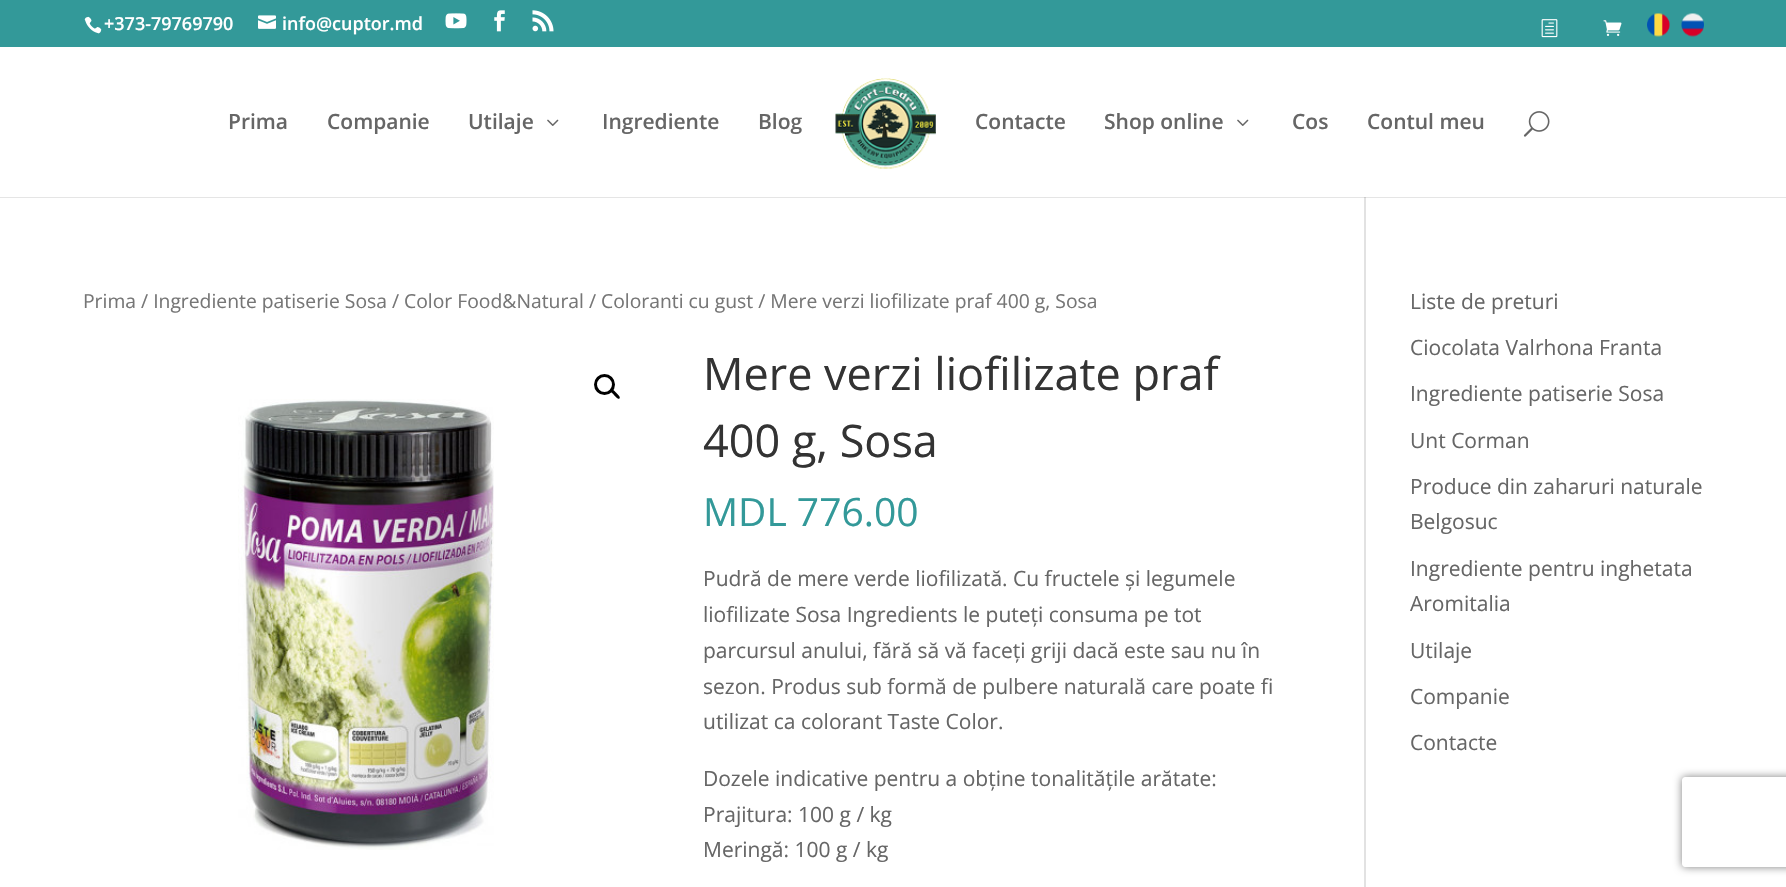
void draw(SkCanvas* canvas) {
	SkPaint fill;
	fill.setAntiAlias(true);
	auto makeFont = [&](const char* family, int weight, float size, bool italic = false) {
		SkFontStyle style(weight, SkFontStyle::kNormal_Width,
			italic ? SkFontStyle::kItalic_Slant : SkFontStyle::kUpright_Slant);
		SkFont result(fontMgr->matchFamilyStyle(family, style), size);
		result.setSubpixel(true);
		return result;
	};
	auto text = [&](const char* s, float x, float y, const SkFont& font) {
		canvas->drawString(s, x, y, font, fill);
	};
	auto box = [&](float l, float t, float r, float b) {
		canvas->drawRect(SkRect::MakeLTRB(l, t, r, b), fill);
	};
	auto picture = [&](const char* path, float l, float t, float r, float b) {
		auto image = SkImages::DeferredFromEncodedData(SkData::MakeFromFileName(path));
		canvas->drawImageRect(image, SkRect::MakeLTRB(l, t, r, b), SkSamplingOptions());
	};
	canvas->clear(0xFFFFFFFF);
	fill.setColor(0xFF339999);
	box(0, 0, 1786, 47);
	picture("image0.png", 84, 16, 102, 34);
	picture("image1.png", 258, 15, 276, 29);
	picture("image2.png", 445, 13, 467, 29);
	picture("image3.png", 494, 10, 505, 32);
	picture("image4.png", 532, 10, 554, 32);
	picture("image5.png", 1541, 19, 1558, 38);
	picture("image6.png", 1603, 20, 1622, 36);
	picture("image7.png", 1647, 13, 1670, 37);
	picture("image8.png", 1681, 13, 1704, 37);
	fill.setColor(0xFFE2E2E2);
	box(1364, 197, 1366, 887);
	fill.setColor(0x1A000000);
	canvas->drawPath(SkPathBuilder().moveTo(0, 196).lineTo(0, 198).lineTo(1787, 198).lineTo(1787, 48).lineTo(1786, 48).lineTo(1786, 196).close().detach(), fill);
	fill.setColor(0xFFFFFFFF);
	box(0, 196, 1786, 197);
	picture("image9.png", 547, 119, 559, 126);
	picture("image10.png", 835, 78, 936, 169);
	picture("image9.png", 1237, 119, 1249, 126);
	picture("image11.png", 1523, 111, 1550, 137);
	fill.setStyle(SkPaint::kStroke_Style);
	fill.setStrokeWidth(3);
	fill.setColor(0xFF000000);
	canvas->drawCircle(604.5f, 384.5f, 9, fill);
	fill.setStyle(SkPaint::kFill_Style);
	canvas->drawPath(SkPathBuilder().moveTo(611, 390).cubicTo(612.5f, 388, 615.5f, 392, 616.5f, 393).cubicTo(617, 394, 621, 396.5f, 619.5f, 398.5f).cubicTo(618, 400, 615, 396, 614, 395).cubicTo(613.5f, 394, 609.5f, 391.5f, 611, 390).close().detach(), fill);
	picture("image12.png", 238, 399, 494, 850);
	canvas->save();
	canvas->clipPath(SkPathBuilder(SkPathFillType::kEvenOdd).moveTo(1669, 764).lineTo(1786, 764).lineTo(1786, 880).lineTo(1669, 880).close().moveTo(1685, 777).lineTo(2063, 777).cubicTo(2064.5f, 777, 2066, 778.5f, 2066, 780).lineTo(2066, 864).cubicTo(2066, 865.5f, 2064.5f, 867, 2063, 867).lineTo(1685, 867).cubicTo(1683.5f, 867, 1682, 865.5f, 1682, 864).lineTo(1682, 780).cubicTo(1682, 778.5f, 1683.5f, 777, 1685, 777).close().detach(), true);
	fill.setColor(0xFF808080);
	fill.setMaskFilter(SkMaskFilter::MakeBlur(kNormal_SkBlurStyle, 4));
	canvas->drawRoundRect(SkRect::MakeLTRB(1682, 777, 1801, 867), 3, 3, fill);
	fill.setMaskFilter(nullptr);
	canvas->restore();
	auto font1 = makeFont("Open Sans", 600, 18);
	fill.setColor(0xFFFFFFFF);
	text("+373-79769790", 104, 30, font1);
	text("info@cuptor.md", 282, 30, font1);
	auto font2 = makeFont("Open Sans", 600, 21);
	fill.setColor(0xFF666666);
	text("Prima", 228, 129, font2);
	text("Companie", 327, 129, font2);
	text("Utilaje", 468, 129, font2);
	text("Ingrediente", 602, 129, font2);
	text("Blog", 758, 129, font2);
	text("Contacte", 975, 129, font2);
	text("Shop online", 1104, 129, font2);
	text("Cos", 1292, 129, font2);
	text("Contul meu", 1367, 129, font2);
	auto font3 = makeFont("Open Sans", 400, 19.32f);
	fill.setColor(0xFF767676);
	text("Prima / Ingrediente patiserie Sosa / Color Food&Natural / Coloranti cu gust / Mere verzi liofilizate praf 400 g, Sosa", 83, 308, font3);
	auto font4 = makeFont("Open Sans", 400, 45);
	fill.setColor(0xFF333333);
	text("Mere verzi liofilizate praf", 703, 390, font4);
	text("400 g, Sosa", 703, 457, font4);
	auto font5 = makeFont("Open Sans", 400, 39);
	fill.setColor(0xFF339999);
	text("MDL 776.00", 703, 526, font5);
	auto font6 = makeFont("Open Sans", 400, 21);
	fill.setColor(0xFF666666);
	text("Pudră de mere verde liofilizată. Cu fructele și legumele", 703, 586, font6);
	text("liofilizate Sosa Ingredients le puteți consuma pe tot", 703, 622, font6);
	text("parcursul anului, fără să vă faceți griji dacă este sau nu în", 703, 658, font6);
	text("sezon. Produs sub formă de pulbere naturală care poate fi", 703, 694, font6);
	text("utilizat ca colorant Taste Color.", 703, 729, font6);
	text("Dozele indicative pentru a obține tonalitățile arătate:", 703, 786, font6);
	text("Prajitura: 100 g / kg", 703, 822, font6);
	text("Meringă: 100 g / kg", 703, 857, font6);
	text("Liste de preturi", 1410, 309, font6);
	text("Ciocolata Valrhona Franta", 1410, 355, font6);
	text("Ingrediente patiserie Sosa", 1410, 401, font6);
	text("Unt Corman", 1410, 448, font6);
	text("Produce din zaharuri naturale", 1410, 494, font6);
	text("Belgosuc", 1410, 529, font6);
	text("Ingrediente pentru inghetata", 1410, 576, font6);
	text("Aromitalia", 1410, 611, font6);
	text("Utilaje", 1410, 658, font6);
	text("Companie", 1410, 704, font6);
	text("Contacte", 1410, 750, font6);
}
